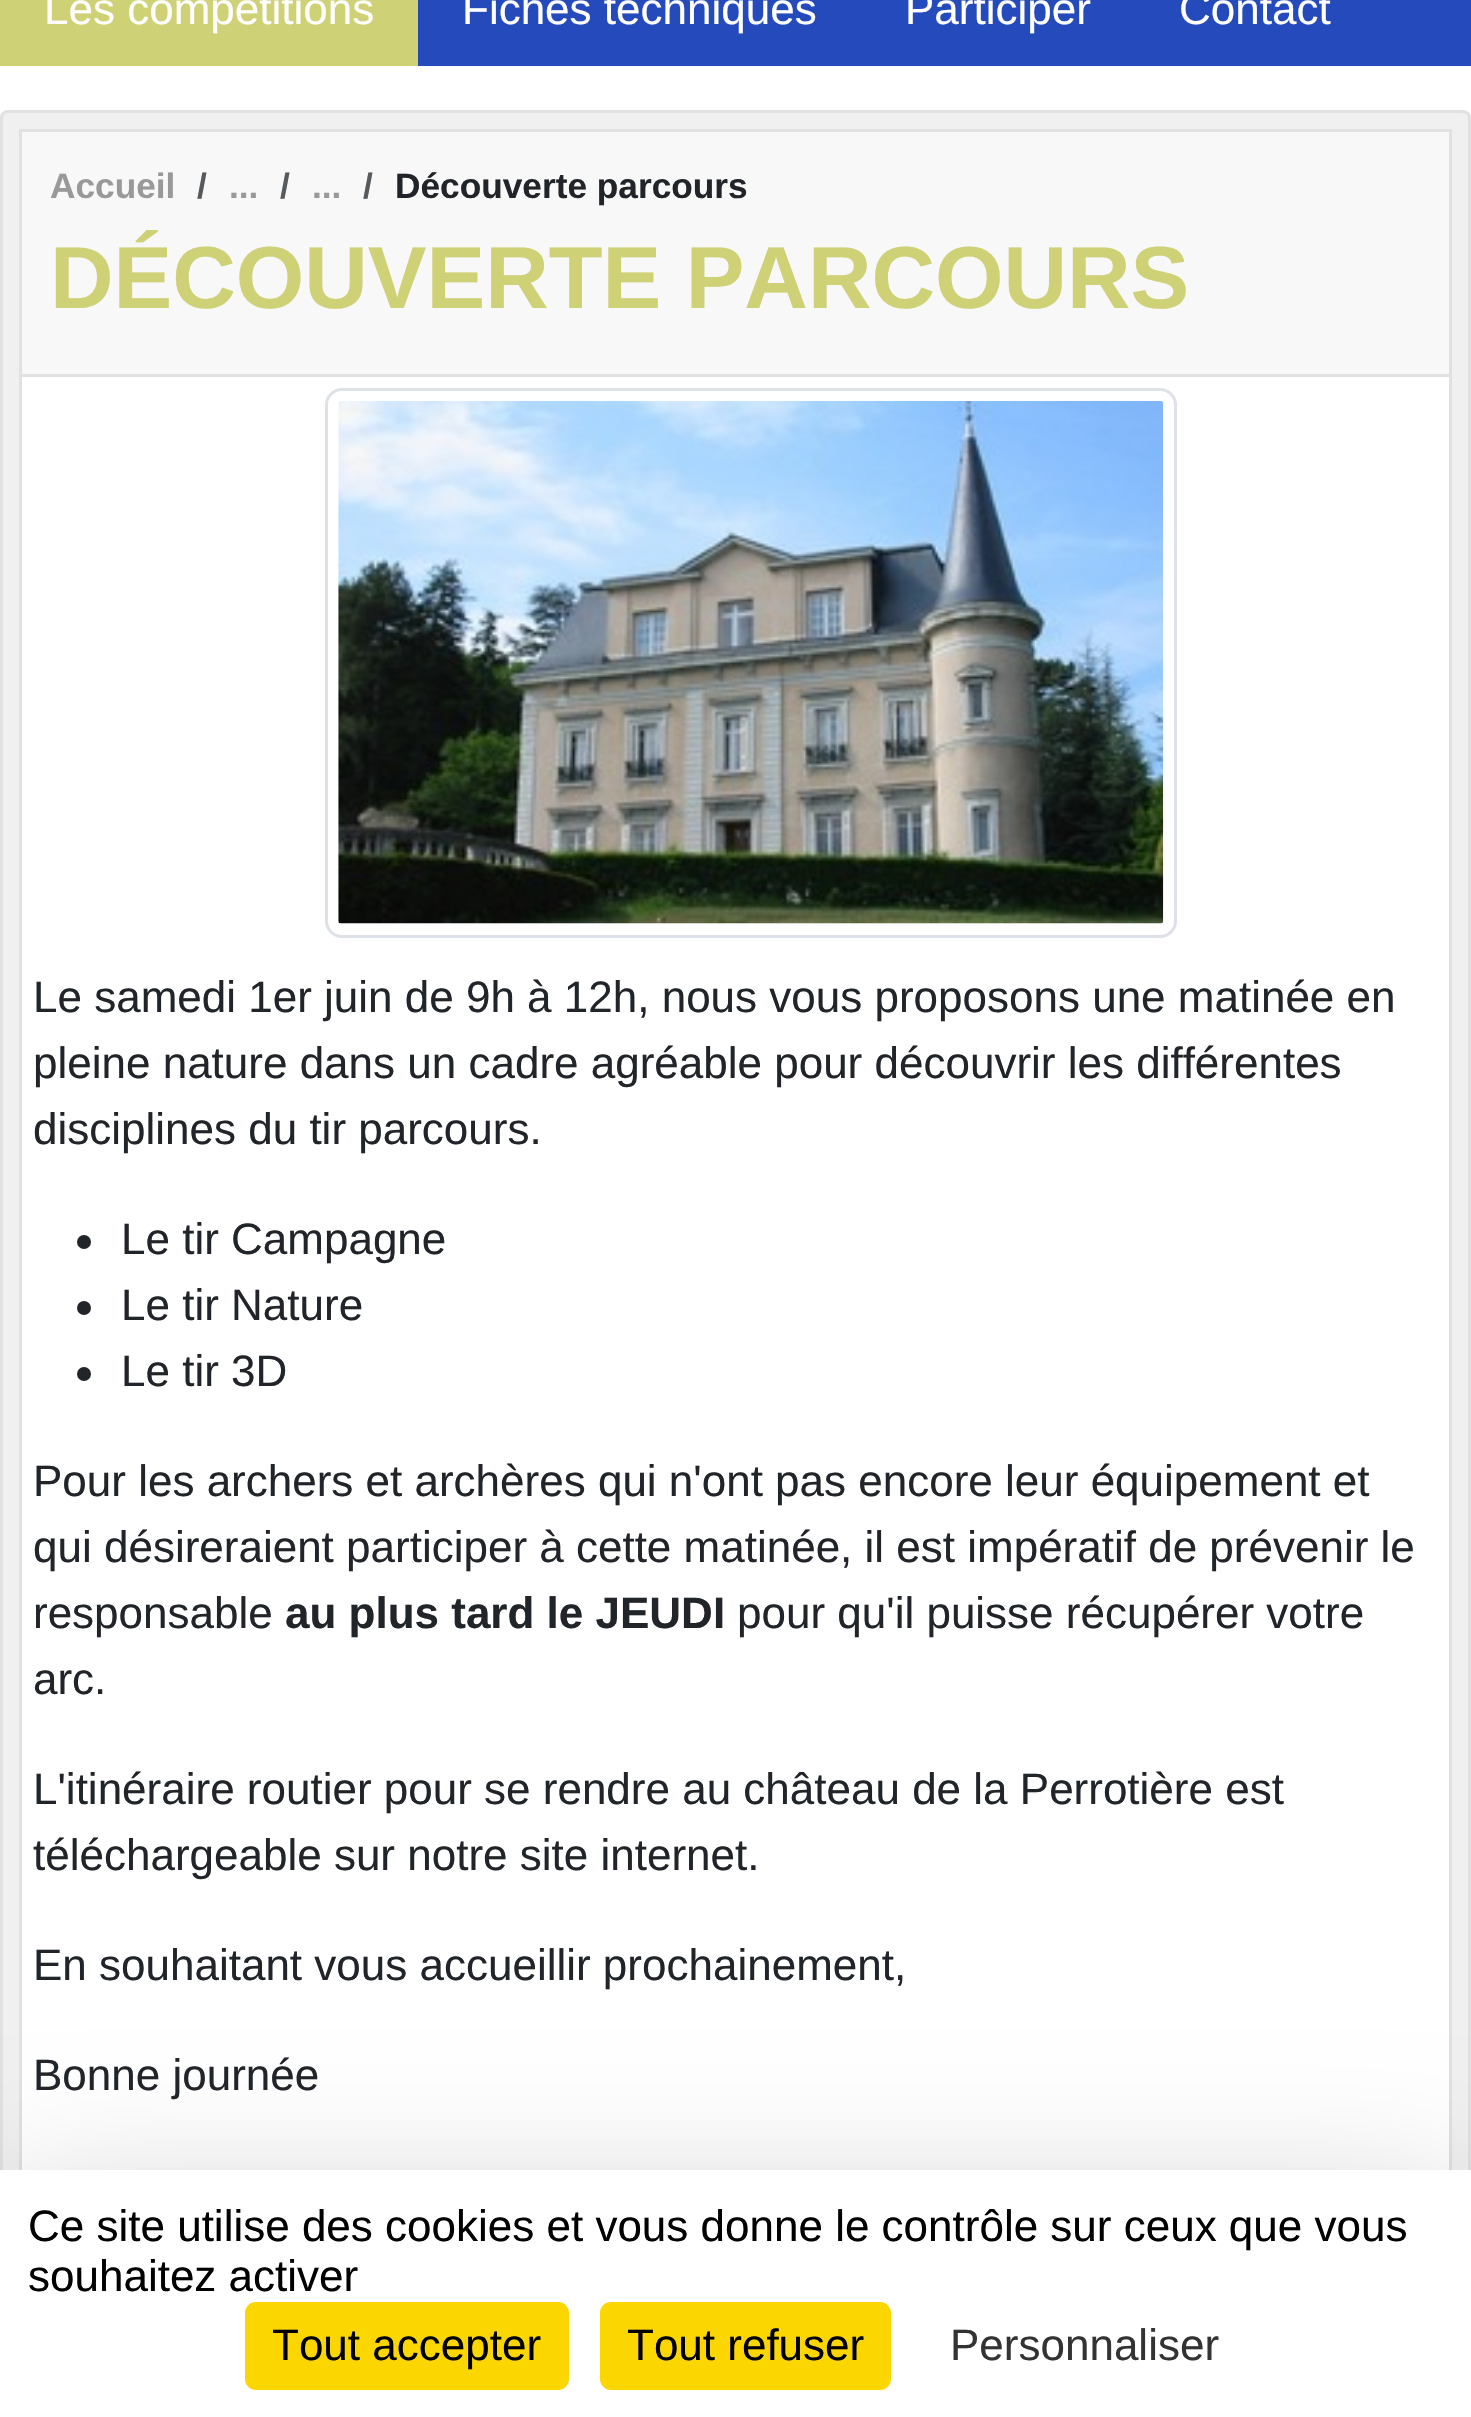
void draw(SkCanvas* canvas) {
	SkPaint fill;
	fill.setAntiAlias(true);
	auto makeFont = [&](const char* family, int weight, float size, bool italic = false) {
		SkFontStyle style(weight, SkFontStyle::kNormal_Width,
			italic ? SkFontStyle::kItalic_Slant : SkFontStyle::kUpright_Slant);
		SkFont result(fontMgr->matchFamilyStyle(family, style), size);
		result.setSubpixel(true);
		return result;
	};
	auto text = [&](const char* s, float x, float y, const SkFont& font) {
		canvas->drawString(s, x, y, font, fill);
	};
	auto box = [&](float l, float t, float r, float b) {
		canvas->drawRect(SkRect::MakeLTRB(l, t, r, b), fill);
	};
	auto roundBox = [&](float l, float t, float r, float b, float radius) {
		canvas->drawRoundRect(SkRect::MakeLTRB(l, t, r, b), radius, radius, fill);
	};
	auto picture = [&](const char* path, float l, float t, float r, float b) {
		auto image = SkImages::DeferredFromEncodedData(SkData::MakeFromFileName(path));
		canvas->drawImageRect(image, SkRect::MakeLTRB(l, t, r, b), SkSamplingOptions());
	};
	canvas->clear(0xFFFFFFFF);
	fill.setColor(0xFF254ABB);
	box(418, 0, 1471, 66);
	fill.setColor(0xFFCED175);
	box(0, 0, 418, 66);
	fill.setColor(0xFFF0F0F0);
	canvas->drawRoundRect(SkRect::MakeLTRB(1.5f, 111.5f, 1469.5f, 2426.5f), 6.5f, 6.5f, fill);
	fill.setStyle(SkPaint::kStroke_Style);
	fill.setStrokeWidth(3);
	fill.setColor(0xFFE1E1E1);
	canvas->drawRoundRect(SkRect::MakeLTRB(1.5f, 111.5f, 1469.5f, 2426.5f), 6.5f, 6.5f, fill);
	fill.setStyle(SkPaint::kFill_Style);
	fill.setColor(0xFFFFFFFF);
	box(22, 377, 1449, 2170);
	fill.setStyle(SkPaint::kStroke_Style);
	fill.setColor(0xFFE1E1E1);
	canvas->drawRect(SkRect::MakeLTRB(20.5f, 130.5f, 1450.5f, 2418.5f), fill);
	fill.setStyle(SkPaint::kFill_Style);
	fill.setColor(0xFFF8F8F8);
	box(22, 132, 1449, 374);
	fill.setColor(0xFFE1E1E1);
	box(22, 374, 1449, 377);
	fill.setStyle(SkPaint::kStroke_Style);
	fill.setColor(0xFFDEE2E6);
	canvas->drawRoundRect(SkRect::MakeLTRB(326.5f, 389.5f, 1175.5f, 936.5f), 15.5f, 15.5f, fill);
	picture("image0.png", 338, 401, 1164, 924);
	fill.setStyle(SkPaint::kFill_Style);
	fill.setColor(0xFF212529);
	canvas->drawCircle(84, 1242, 7, fill);
	canvas->drawCircle(84, 1308, 7, fill);
	canvas->drawCircle(84, 1374, 7, fill);
	fill.setColor(0x40000000);
	fill.setMaskFilter(SkMaskFilter::MakeBlur(kNormal_SkBlurStyle, 82.5f));
	canvas->drawRect(SkRect::MakeLTRB(0, 2225, 1471, 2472), fill);
	fill.setMaskFilter(nullptr);
	fill.setColor(0xFFFFFFFF);
	box(0, 2170, 1471, 2417);
	fill.setColor(0xFFFBD600);
	roundBox(245, 2302, 569, 2390, 11);
	roundBox(600, 2302, 891, 2390, 11);
	auto font1 = makeFont("Liberation Sans", 400, 44);
	fill.setColor(0xFFFFFFFF);
	text("Les compétitions", 44, 24, font1);
	text("Fiches techniques", 462, 24, font1);
	text("Participer", 905, 24, font1);
	text("Contact", 1179, 24, font1);
	auto font2 = makeFont("Liberation Sans", 700, 35.25f);
	fill.setColor(0xFF999999);
	text("Accueil", 50, 198, font2);
	fill.setColor(0xFF575A5D);
	text("/", 197, 198, font2);
	fill.setColor(0xFF999999);
	text("...", 229, 198, font2);
	fill.setColor(0xFF575A5D);
	text("/", 280, 198, font2);
	fill.setColor(0xFF999999);
	text("...", 312, 198, font2);
	fill.setColor(0xFF575A5D);
	text("/", 363, 198, font2);
	fill.setColor(0xFF212529);
	text("Découverte parcours", 395, 198, font2);
	auto font3 = makeFont("Liberation Sans", 700, 88);
	fill.setColor(0xFFCED175);
	text("DÉCOUVERTE PARCOURS", 50, 308, font3);
	fill.setColor(0xFF212529);
	text("Le samedi 1er juin de 9h à 12h, nous vous proposons une matinée en", 33, 1012, font1);
	text("pleine nature dans un cadre agréable pour découvrir les différentes", 33, 1078, font1);
	text("disciplines du tir parcours.", 33, 1144, font1);
	text("Le tir Campagne", 121, 1254, font1);
	text("Le tir Nature", 121, 1320, font1);
	text("Le tir 3D", 121, 1386, font1);
	text("Pour les archers et archères qui n'ont pas encore leur équipement et", 33, 1496, font1);
	text("qui désireraient participer à cette matinée, il est impératif de prévenir le", 33, 1562, font1);
	text("responsable", 33, 1628, font1);
	auto font4 = makeFont("Liberation Sans", 700, 44);
	text("au plus tard le JEUDI", 285, 1628, font4);
	text("pour qu'il puisse récupérer votre", 737, 1628, font1);
	text("arc.", 33, 1694, font1);
	text("L'itinéraire routier pour se rendre au château de la Perrotière est", 33, 1804, font1);
	text("téléchargeable sur notre site internet.", 33, 1870, font1);
	text("En souhaitant vous accueillir prochainement,", 33, 1980, font1);
	text("Bonne journée", 33, 2090, font1);
	fill.setColor(0xFF000000);
	text("Ce site utilise des cookies et vous donne le contrôle sur ceux que vous", 28, 2241, font1);
	text("souhaitez activer", 28, 2291, font1);
	text("Tout accepter", 272, 2360, font1);
	text("Tout refuser", 627, 2360, font1);
	fill.setColor(0xFF333333);
	text("Personnaliser", 950, 2360, font1);
}
